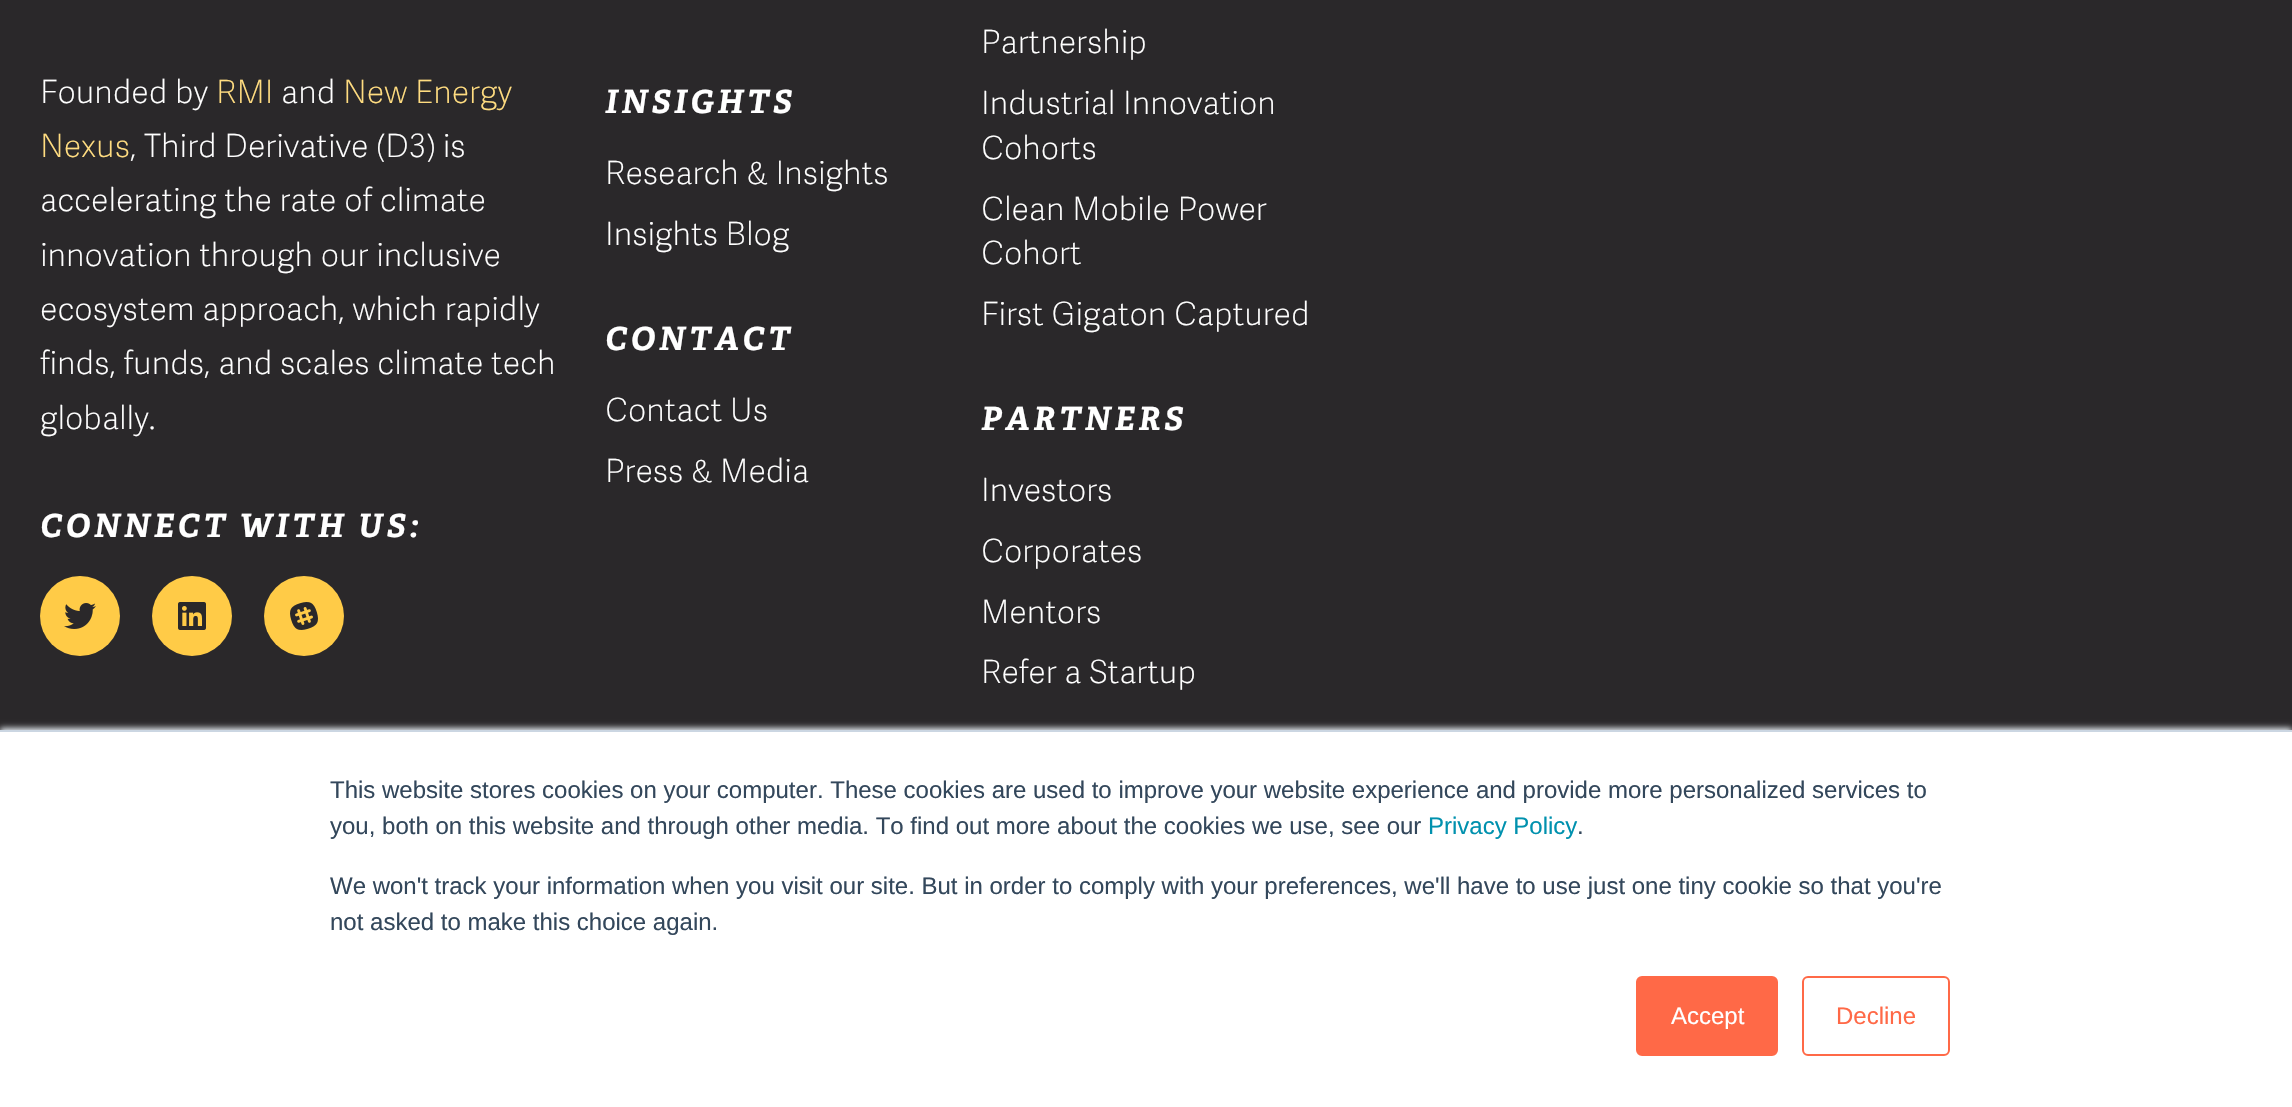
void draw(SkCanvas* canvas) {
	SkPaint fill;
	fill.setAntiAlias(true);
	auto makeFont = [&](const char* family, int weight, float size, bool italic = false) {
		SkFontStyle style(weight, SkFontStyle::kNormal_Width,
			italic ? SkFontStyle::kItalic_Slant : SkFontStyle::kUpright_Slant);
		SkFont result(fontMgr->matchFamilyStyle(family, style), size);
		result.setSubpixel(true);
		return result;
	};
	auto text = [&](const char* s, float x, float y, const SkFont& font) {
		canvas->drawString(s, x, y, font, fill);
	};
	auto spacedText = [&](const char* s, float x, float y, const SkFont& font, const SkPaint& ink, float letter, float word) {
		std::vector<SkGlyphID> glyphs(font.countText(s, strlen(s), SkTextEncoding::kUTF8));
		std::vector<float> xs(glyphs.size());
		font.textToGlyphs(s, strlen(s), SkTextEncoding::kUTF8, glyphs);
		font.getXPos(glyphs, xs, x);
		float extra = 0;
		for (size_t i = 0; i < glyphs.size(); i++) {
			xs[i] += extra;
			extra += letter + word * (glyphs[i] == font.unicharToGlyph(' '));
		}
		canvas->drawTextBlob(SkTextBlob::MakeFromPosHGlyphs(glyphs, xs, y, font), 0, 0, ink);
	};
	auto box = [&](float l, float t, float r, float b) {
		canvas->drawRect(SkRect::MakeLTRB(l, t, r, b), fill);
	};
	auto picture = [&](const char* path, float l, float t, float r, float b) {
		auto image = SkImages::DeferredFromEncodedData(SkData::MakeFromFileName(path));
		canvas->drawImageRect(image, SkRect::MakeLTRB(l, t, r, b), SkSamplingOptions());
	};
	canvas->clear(0xFF2A282A);
	fill.setColor(0xFFFFCB47);
	canvas->drawCircle(80, 616, 40, fill);
	picture("image0.png", 64, 603, 96, 629);
	canvas->drawCircle(192, 616, 40, fill);
	picture("image1.png", 178, 602, 206, 630);
	canvas->drawCircle(304, 616, 40, fill);
	picture("image2.png", 290, 602, 318, 630);
	fill.setColor(0xFFEAF0F6);
	fill.setMaskFilter(SkMaskFilter::MakeBlur(kNormal_SkBlurStyle, 3));
	canvas->drawRect(SkRect::MakeLTRB(0, 728, 2292, 1106), fill);
	fill.setMaskFilter(nullptr);
	fill.setColor(0xFFFFFFFF);
	box(0, 732, 2292, 1107);
	fill.setColor(0xFFCBD6E2);
	box(0, 730, 2292, 732);
	fill.setColor(0xFFFF6947);
	canvas->drawRoundRect(SkRect::MakeLTRB(1637, 977, 1777, 1055), 5, 5, fill);
	fill.setStyle(SkPaint::kStroke_Style);
	fill.setStrokeWidth(2);
	canvas->drawRoundRect(SkRect::MakeLTRB(1637, 977, 1777, 1055), 5, 5, fill);
	canvas->drawRoundRect(SkRect::MakeLTRB(1803, 977, 1949, 1055), 5, 5, fill);
	auto font1 = makeFont("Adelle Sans", 100, 32);
	fill.setStyle(SkPaint::kFill_Style);
	fill.setColor(0xFFFFFFFF);
	text("Founded by", 40, 103, font1);
	fill.setColor(0xFFFFDC80);
	text("RMI", 216, 103, font1);
	fill.setColor(0xFFFFFFFF);
	text("and", 281, 103, font1);
	fill.setColor(0xFFFFDC80);
	text("New Energy", 343, 103, font1);
	text("Nexus", 40, 157, font1);
	fill.setColor(0xFFFFFFFF);
	text(", Third Derivative (D3) is", 130, 157, font1);
	text("accelerating the rate of climate", 40, 211, font1);
	text("innovation through our inclusive", 40, 266, font1);
	text("ecosystem approach, which rapidly", 40, 320, font1);
	text("finds, funds, and scales climate tech", 40, 374, font1);
	text("globally.", 40, 429, font1);
	auto font2 = makeFont("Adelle", 700, 32, true);
	spacedText("CONNECT WITH US:", 40, 537, font2, fill, 4, 0);
	spacedText("INSIGHTS", 605, 113, font2, fill, 4, 0);
	text("Research & Insights", 605, 184, font1);
	text("Insights Blog", 605, 245, font1);
	spacedText("CONTACT", 605, 350, font2, fill, 4, 0);
	text("Contact Us", 605, 421, font1);
	text("Press & Media", 605, 482, font1);
	text("Partnership", 981, 53, font1);
	text("Industrial Innovation", 981, 114, font1);
	text("Cohorts", 981, 159, font1);
	text("Clean Mobile Power", 981, 220, font1);
	text("Cohort", 981, 264, font1);
	text("First Gigaton Captured", 981, 325, font1);
	spacedText("PARTNERS", 981, 430, font2, fill, 4, 0);
	text("Investors", 981, 501, font1);
	text("Corporates", 981, 562, font1);
	text("Mentors", 981, 623, font1);
	text("Refer a Startup", 981, 683, font1);
	auto font3 = makeFont("Liberation Sans", 400, 24);
	fill.setColor(0xFF33475B);
	text("This website stores cookies on your computer. These cookies are used to improve your website experience and provide more personalized services to", 330, 798, font3);
	text("you, both on this website and through other media. To find out more about the cookies we use, see our", 330, 834, font3);
	fill.setColor(0xFF0091AE);
	text("Privacy Policy", 1428, 834, font3);
	fill.setColor(0xFF33475B);
	text(".", 1577, 834, font3);
	text("We won't track your information when you visit our site. But in order to comply with your preferences, we'll have to use just one tiny cookie so that you're", 330, 894, font3);
	text("not asked to make this choice again.", 330, 930, font3);
	fill.setColor(0xFFFFFFFF);
	text("Accept", 1671, 1024, font3);
	fill.setColor(0xFFFF6947);
	text("Decline", 1836, 1024, font3);
}
